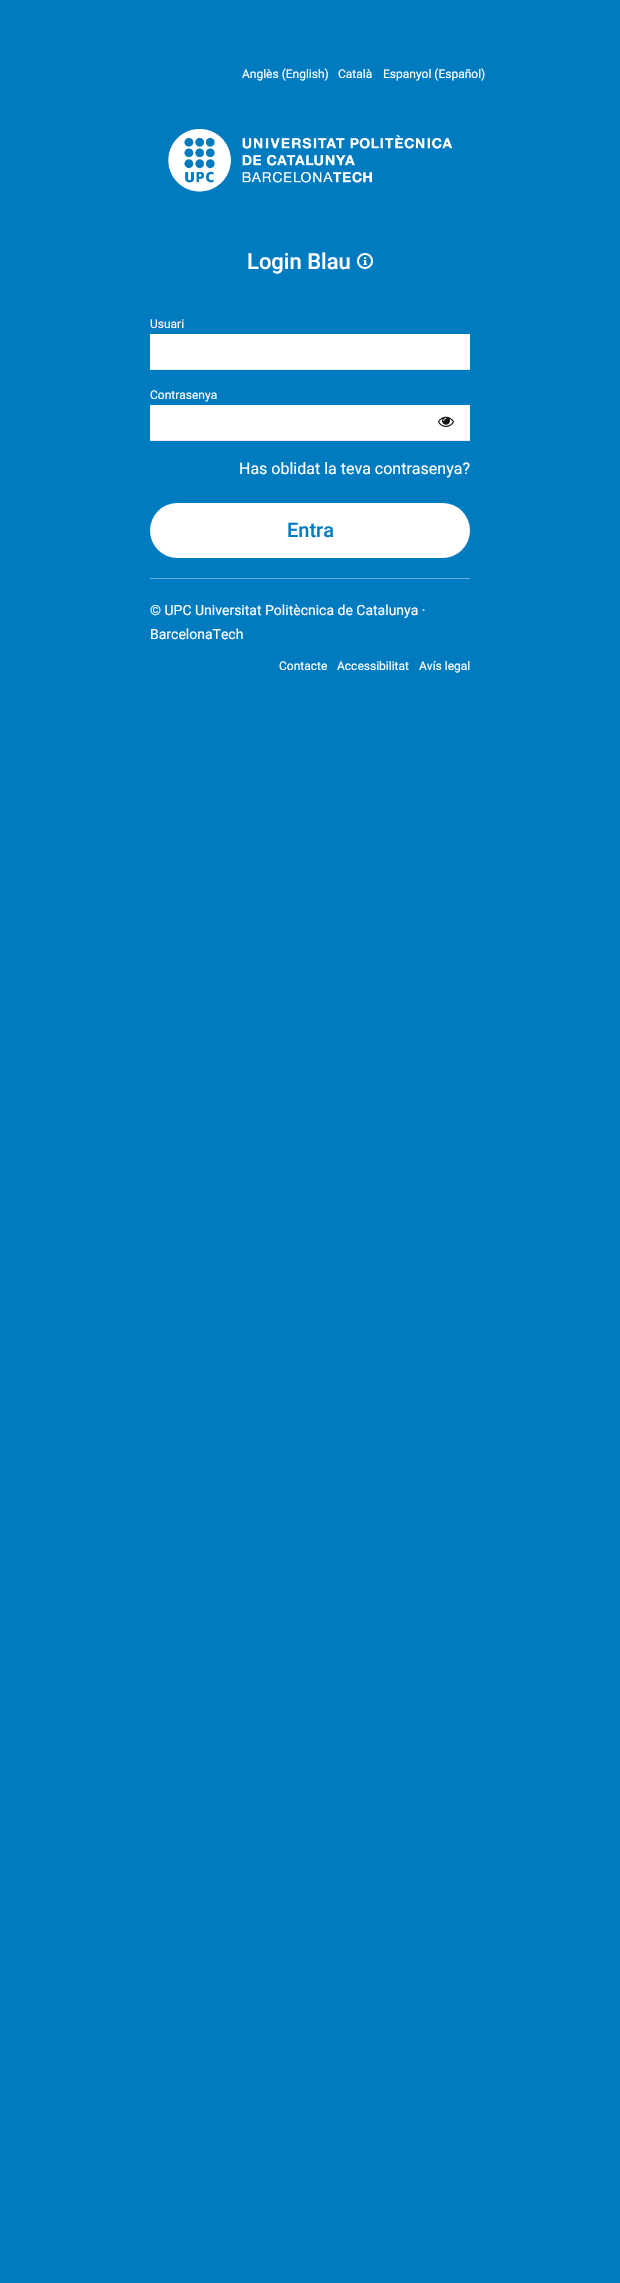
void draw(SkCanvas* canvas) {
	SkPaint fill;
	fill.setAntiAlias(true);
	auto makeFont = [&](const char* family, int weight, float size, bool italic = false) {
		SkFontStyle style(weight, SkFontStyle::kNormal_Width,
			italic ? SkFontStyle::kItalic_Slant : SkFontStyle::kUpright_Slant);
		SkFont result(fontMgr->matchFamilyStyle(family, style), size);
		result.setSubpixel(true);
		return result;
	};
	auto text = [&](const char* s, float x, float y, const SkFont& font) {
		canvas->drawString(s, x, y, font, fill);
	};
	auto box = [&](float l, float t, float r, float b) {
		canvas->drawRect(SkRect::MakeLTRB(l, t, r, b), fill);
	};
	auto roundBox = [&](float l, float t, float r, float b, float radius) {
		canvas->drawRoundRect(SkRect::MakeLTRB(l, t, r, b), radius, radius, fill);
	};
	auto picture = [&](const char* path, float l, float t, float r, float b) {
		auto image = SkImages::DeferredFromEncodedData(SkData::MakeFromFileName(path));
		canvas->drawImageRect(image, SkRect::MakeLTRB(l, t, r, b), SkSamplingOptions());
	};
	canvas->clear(0xFF017BC0);
	picture("image0.png", 168, 129, 453, 192);
	picture("image1.png", 357, 253, 373, 269);
	fill.setColor(0xFFFFFFFF);
	box(150, 334, 470, 369);
	fill.setColor(0xFFE9EDF2);
	box(150, 369, 470, 370);
	fill.setColor(0xFFFFFFFF);
	box(150, 405, 470, 440);
	picture("image2.png", 438, 416, 454, 427);
	fill.setColor(0xFFE9EDF2);
	box(150, 440, 470, 441);
	fill.setColor(0xFFFFFFFF);
	roundBox(150, 503, 470, 558, 27.5f);
	fill.setColor(0xFF67B0D9);
	box(150, 578, 470, 579);
	auto font1 = makeFont("Roboto", 400, 12);
	fill.setColor(0xFFFFFFFF);
	text("Anglès (English)", 242, 78, font1);
	text("Català", 338, 78, font1);
	text("Espanyol (Español)", 383, 78, font1);
	auto font2 = makeFont("Roboto", 500, 22);
	text("Login Blau", 247, 269, font2);
	text("Usuari", 150, 328, font1);
	text("Contrasenya", 150, 399, font1);
	auto font3 = makeFont("Roboto", 400, 16);
	text("Has oblidat la teva contrasenya?", 239, 474, font3);
	auto font4 = makeFont("Roboto", 500, 20);
	fill.setColor(0xFF007BC0);
	text("Entra", 287, 537, font4);
	auto font5 = makeFont("Roboto", 400, 14);
	fill.setColor(0xFFFFFFFF);
	text("© UPC Universitat Politècnica de Catalunya ·", 150, 615, font5);
	text("BarcelonaTech", 150, 639, font5);
	text("Contacte", 279, 670, font1);
	text("Accessibilitat", 337, 670, font1);
	text("Avís legal", 419, 670, font1);
}
